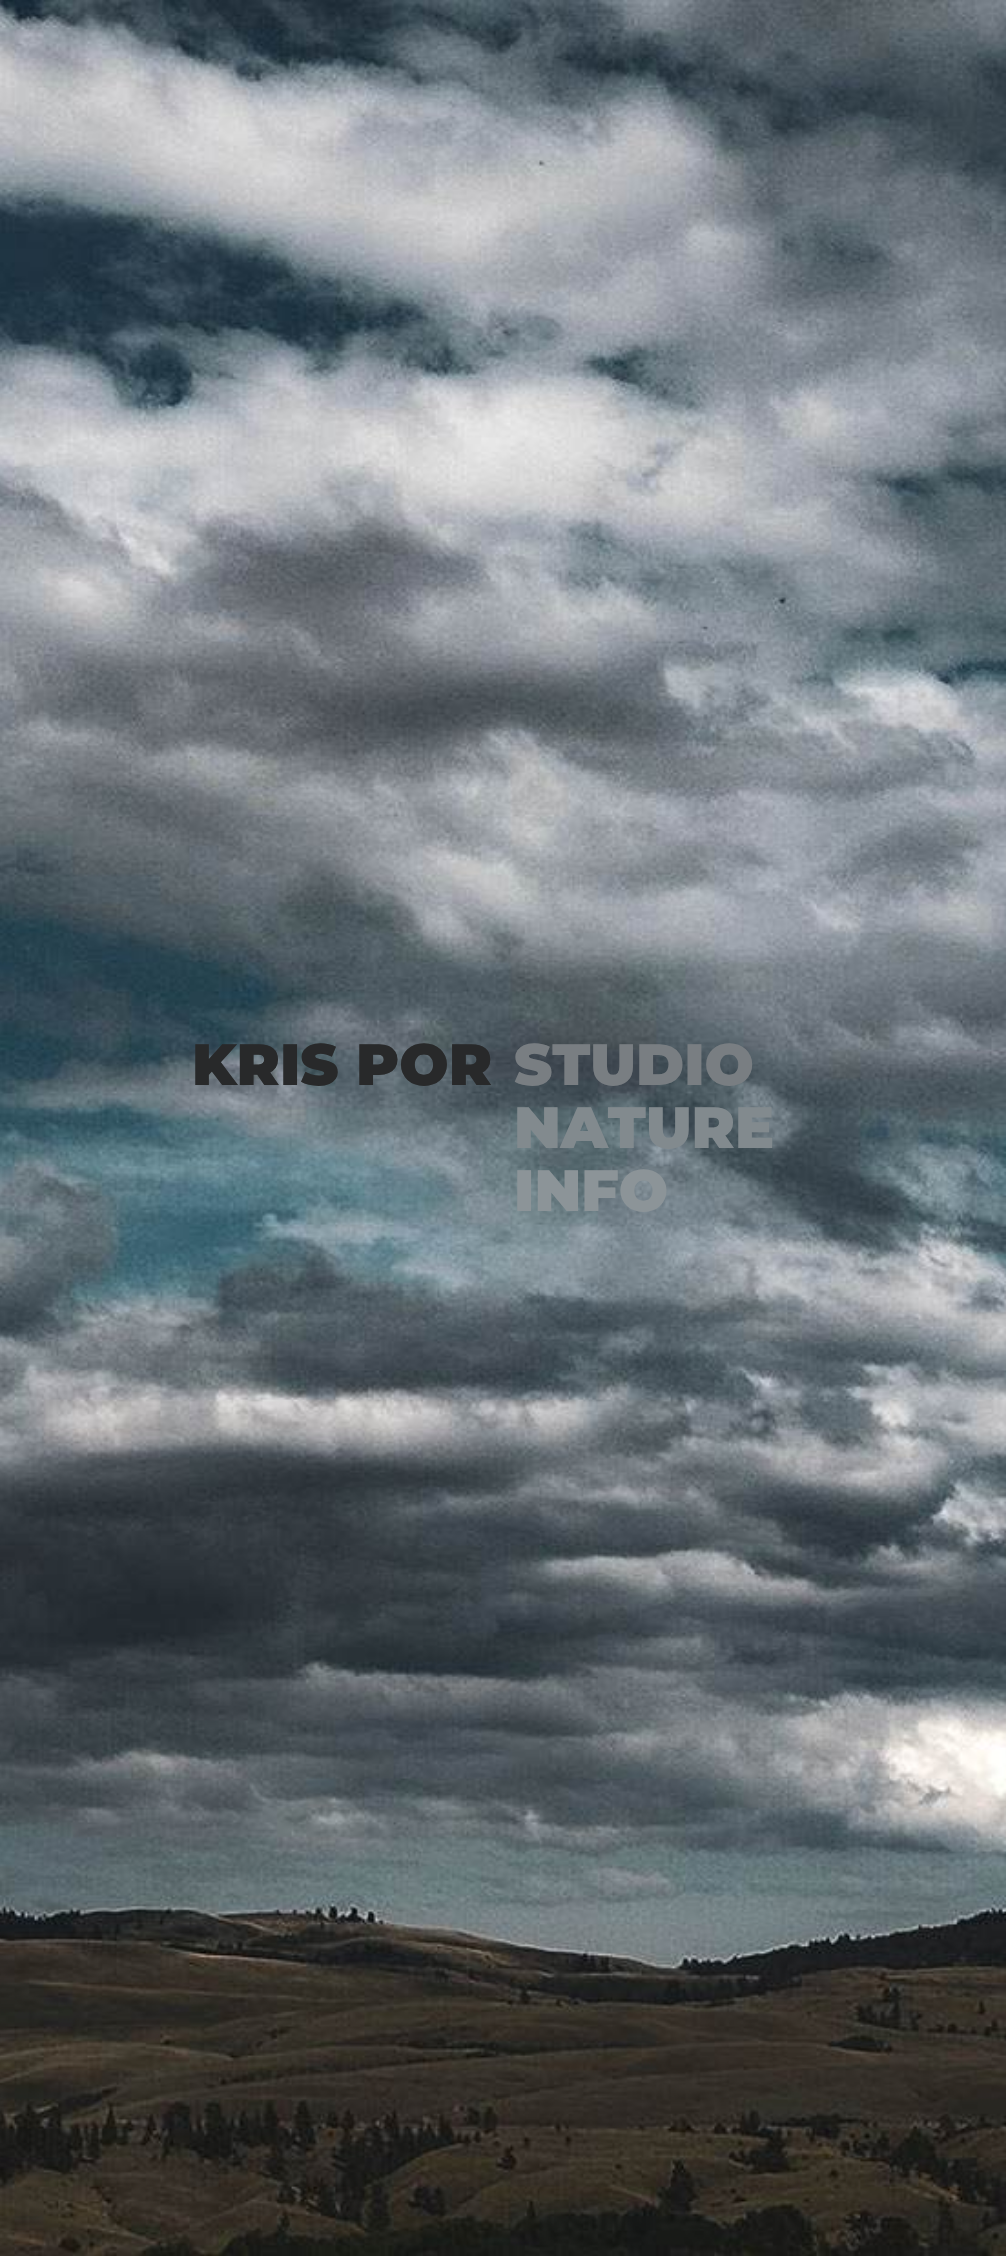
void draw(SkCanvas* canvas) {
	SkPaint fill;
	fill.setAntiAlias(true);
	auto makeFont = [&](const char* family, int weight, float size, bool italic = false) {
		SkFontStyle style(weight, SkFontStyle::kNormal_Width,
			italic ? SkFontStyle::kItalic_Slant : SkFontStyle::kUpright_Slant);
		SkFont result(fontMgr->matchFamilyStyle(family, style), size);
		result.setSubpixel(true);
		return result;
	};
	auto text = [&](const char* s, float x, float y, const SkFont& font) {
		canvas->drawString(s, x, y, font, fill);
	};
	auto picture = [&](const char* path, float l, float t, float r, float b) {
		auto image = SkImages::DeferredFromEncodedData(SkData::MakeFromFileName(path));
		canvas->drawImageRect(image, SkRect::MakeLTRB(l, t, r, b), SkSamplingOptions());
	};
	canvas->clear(0xFFFFFFFF);
	picture("image0.png", 0, 0, 1006, 2256);
	auto font1 = makeFont("Montserrat", 900, 58.25f);
	fill.setColor(0xFF28292A);
	text("KRIS POR", 192, 1085, font1);
	fill.setColor(0xFF797E82);
	text("STUDIO", 514, 1085, font1);
	fill.setColor(0xFF828A8E);
	text("NATURE", 514, 1148, font1);
	fill.setColor(0xFF8C9498);
	text("INFO", 514, 1211, font1);
}
